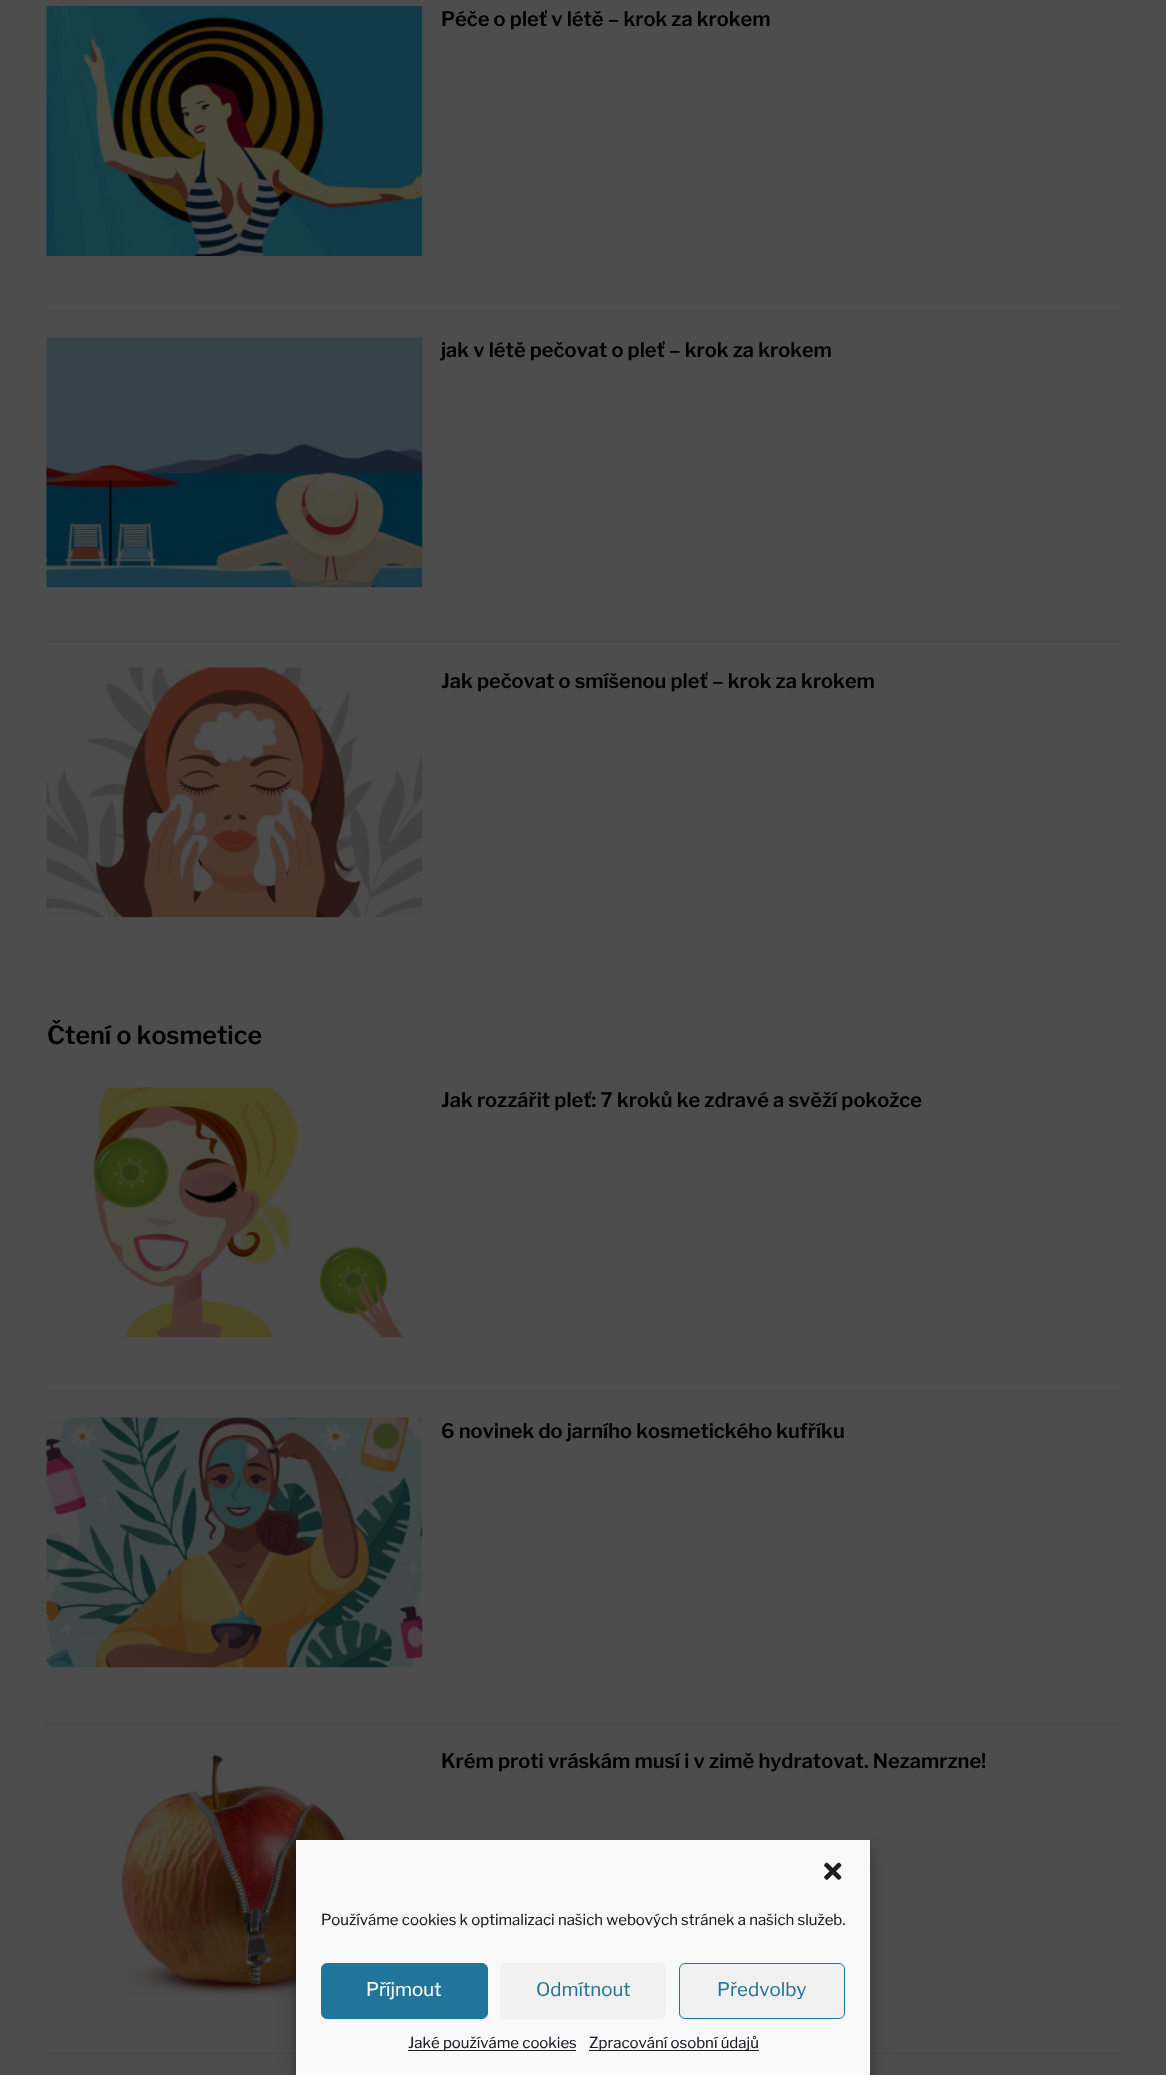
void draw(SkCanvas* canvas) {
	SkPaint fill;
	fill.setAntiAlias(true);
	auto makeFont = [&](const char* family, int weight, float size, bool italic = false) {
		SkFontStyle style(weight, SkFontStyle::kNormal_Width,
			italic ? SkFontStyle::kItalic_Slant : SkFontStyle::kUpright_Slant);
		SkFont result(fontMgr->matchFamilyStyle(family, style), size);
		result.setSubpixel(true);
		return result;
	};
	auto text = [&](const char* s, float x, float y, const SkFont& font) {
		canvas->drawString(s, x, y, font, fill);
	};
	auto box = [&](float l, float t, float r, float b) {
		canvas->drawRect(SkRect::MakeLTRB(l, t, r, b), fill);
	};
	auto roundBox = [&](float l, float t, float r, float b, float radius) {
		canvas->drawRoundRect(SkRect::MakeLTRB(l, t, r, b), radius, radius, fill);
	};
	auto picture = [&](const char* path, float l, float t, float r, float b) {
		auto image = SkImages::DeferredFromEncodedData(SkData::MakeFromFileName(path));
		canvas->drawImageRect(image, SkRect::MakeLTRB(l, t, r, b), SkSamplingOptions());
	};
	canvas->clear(0xFF4D4D4D);
	fill.setColor(0xFF474747);
	box(46, 311, 1120, 312);
	picture("image0.png", 46, 6, 423, 256);
	box(46, 641, 1120, 642);
	picture("image1.png", 46, 337, 423, 588);
	picture("image2.png", 46, 667, 423, 918);
	box(46, 1391, 1120, 1392);
	picture("image3.png", 88, 1087, 406, 1338);
	box(46, 1723, 1120, 1724);
	picture("image4.png", 46, 1417, 423, 1668);
	box(46, 2053, 1120, 2054);
	picture("image5.png", 121, 1749, 355, 1997);
	fill.setColor(0x3B000000);
	fill.setMaskFilter(SkMaskFilter::MakeBlur(kNormal_SkBlurStyle, 4));
	canvas->drawRect(SkRect::MakeLTRB(296, 1848, 870, 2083), fill);
	fill.setMaskFilter(nullptr);
	fill.setColor(0x30000000);
	fill.setMaskFilter(SkMaskFilter::MakeBlur(kNormal_SkBlurStyle, 12.5f));
	canvas->drawRect(SkRect::MakeLTRB(296, 1853, 870, 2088), fill);
	fill.setMaskFilter(nullptr);
	fill.setColor(0xFFF9F9F9);
	box(296, 1840, 870, 2075);
	picture("image6.png", 824, 1862, 842, 1880);
	fill.setColor(0xFF21759B);
	canvas->drawRoundRect(SkRect::MakeLTRB(321.5f, 1963.5f, 487.5f, 2018.5f), 5.5f, 5.5f, fill);
	fill.setStyle(SkPaint::kStroke_Style);
	fill.setStrokeWidth(1);
	canvas->drawRoundRect(SkRect::MakeLTRB(321.5f, 1963.5f, 487.5f, 2018.5f), 5.5f, 5.5f, fill);
	fill.setStyle(SkPaint::kFill_Style);
	fill.setColor(0xFFF1F1F1);
	roundBox(500, 1963, 666, 2019, 6);
	canvas->drawRoundRect(SkRect::MakeLTRB(679.5f, 1963.5f, 844.5f, 2018.5f), 5.5f, 5.5f, fill);
	fill.setStyle(SkPaint::kStroke_Style);
	fill.setColor(0xFF21759B);
	canvas->drawRoundRect(SkRect::MakeLTRB(679.5f, 1963.5f, 844.5f, 2018.5f), 5.5f, 5.5f, fill);
	fill.setStyle(SkPaint::kFill_Style);
	fill.setColor(0xFF191E23);
	box(408, 2050, 576, 2051);
	box(589, 2050, 759, 2051);
	auto font1 = makeFont("Libre Franklin", 600, 20);
	fill.setColor(0xFF000000);
	text("Péče o pleť v létě – krok za krokem", 441, 26, font1);
	text("jak v létě pečovat o pleť – krok za krokem", 441, 357, font1);
	text("Jak pečovat o smíšenou pleť – krok za krokem", 441, 688, font1);
	auto font2 = makeFont("Libre Franklin", 600, 25);
	text("Čtení o kosmetice", 47, 1044, font2);
	text("Jak rozzářit pleť: 7 kroků ke zdravé a svěží pokožce", 441, 1107, font1);
	text("6 novinek do jarního kosmetického kufříku", 441, 1438, font1);
	text("Krém proti vráskám musí i v zimě hydratovat. Nezamrzne!", 441, 1768, font1);
	auto font3 = makeFont("Libre Franklin", 400, 15);
	fill.setColor(0xFF191E23);
	text("Používáme cookies k optimalizaci našich webových stránek a našich služeb.", 321, 1925, font3);
	auto font4 = makeFont("Libre Franklin", 400, 18.75f);
	fill.setColor(0xFFFFFFFF);
	text("Příjmout", 366, 1996, font4);
	fill.setColor(0xFF21759B);
	text("Odmítnout", 536, 1996, font4);
	text("Předvolby", 717, 1996, font4);
	fill.setColor(0xFF191E23);
	text("Jaké používáme cookies", 408, 2048, font3);
	text("Zpracování osobní údajů", 589, 2048, font3);
}
